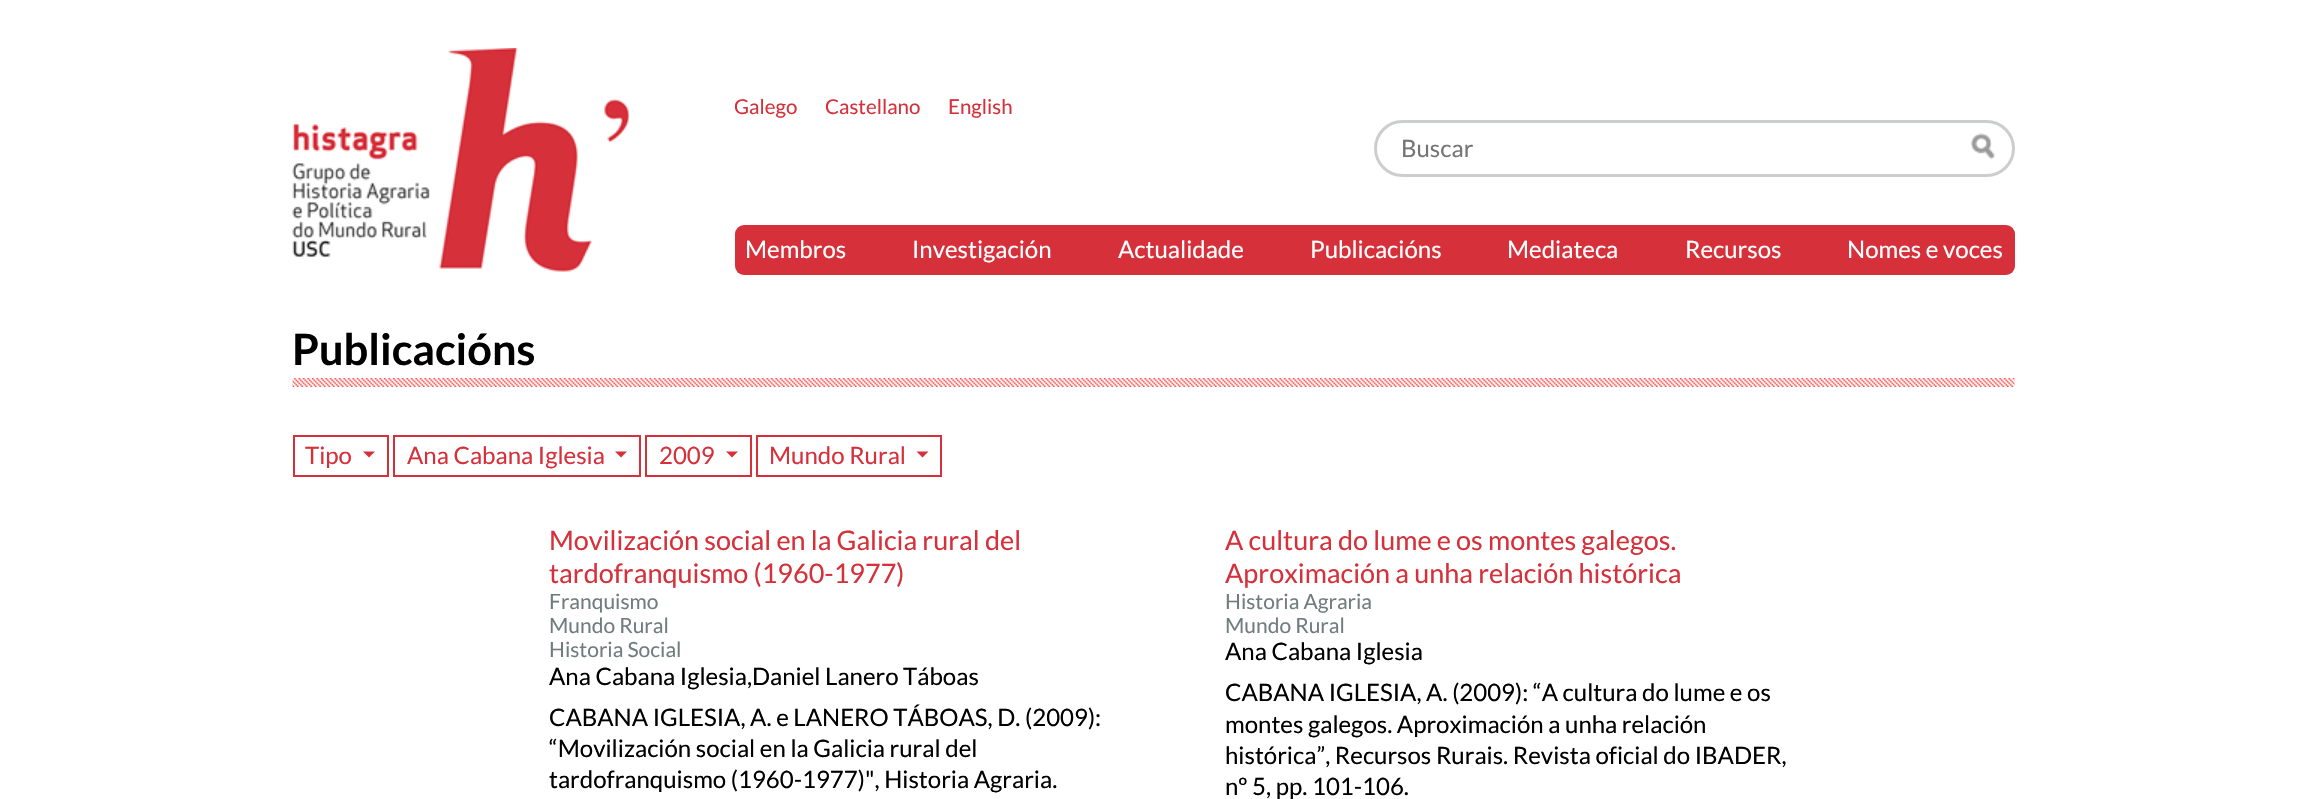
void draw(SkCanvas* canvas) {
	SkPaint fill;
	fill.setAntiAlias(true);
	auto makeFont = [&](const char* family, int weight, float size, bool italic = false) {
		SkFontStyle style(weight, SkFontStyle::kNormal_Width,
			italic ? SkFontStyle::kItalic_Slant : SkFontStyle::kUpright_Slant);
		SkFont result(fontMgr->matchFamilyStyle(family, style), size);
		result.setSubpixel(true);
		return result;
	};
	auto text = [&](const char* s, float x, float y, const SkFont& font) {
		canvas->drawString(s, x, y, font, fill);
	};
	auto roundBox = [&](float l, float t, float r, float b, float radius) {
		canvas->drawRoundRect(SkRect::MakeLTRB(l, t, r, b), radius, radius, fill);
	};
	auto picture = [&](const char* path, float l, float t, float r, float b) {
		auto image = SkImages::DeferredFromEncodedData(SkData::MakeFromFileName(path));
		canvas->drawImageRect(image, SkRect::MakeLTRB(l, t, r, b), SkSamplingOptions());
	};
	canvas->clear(0xFFFFFFFF);
	picture("image0.png", 292, 48, 630, 272);
	fill.setStyle(SkPaint::kStroke_Style);
	fill.setStrokeWidth(3);
	fill.setColor(0xFFCCCDCD);
	canvas->drawRoundRect(SkRect::MakeLTRB(1375.5f, 121.5f, 2013.5f, 175.5f), 27, 27, fill);
	picture("image1.png", 1970, 133, 1996, 160);
	fill.setStyle(SkPaint::kFill_Style);
	fill.setColor(0xFFD6313B);
	roundBox(735, 225, 2015, 275, 9);
	picture("image2.png", 292, 378, 2015, 387);
	fill.setStyle(SkPaint::kStroke_Style);
	fill.setStrokeWidth(2);
	canvas->drawRect(SkRect::MakeLTRB(294, 436, 388, 476), fill);
	fill.setStyle(SkPaint::kFill_Style);
	canvas->drawPath(SkPathBuilder().moveTo(363, 451.5f).lineTo(375, 451.5f).lineTo(369, 457.5f).close().detach(), fill);
	fill.setStyle(SkPaint::kStroke_Style);
	canvas->drawRect(SkRect::MakeLTRB(394, 436, 640, 476), fill);
	fill.setStyle(SkPaint::kFill_Style);
	canvas->drawPath(SkPathBuilder().moveTo(615, 451.5f).lineTo(627, 451.5f).lineTo(621, 457.5f).close().detach(), fill);
	fill.setStyle(SkPaint::kStroke_Style);
	canvas->drawRect(SkRect::MakeLTRB(646, 436, 751, 476), fill);
	fill.setStyle(SkPaint::kFill_Style);
	canvas->drawPath(SkPathBuilder().moveTo(726, 451.5f).lineTo(738, 451.5f).lineTo(732, 457.5f).close().detach(), fill);
	fill.setStyle(SkPaint::kStroke_Style);
	canvas->drawRect(SkRect::MakeLTRB(757, 436, 941, 476), fill);
	fill.setStyle(SkPaint::kFill_Style);
	canvas->drawPath(SkPathBuilder().moveTo(916.5f, 451.5f).lineTo(928.5f, 451.5f).lineTo(922.5f, 457.5f).close().detach(), fill);
	auto font1 = makeFont("Lato", 400, 20.5f);
	text("Galego", 734, 114, font1);
	text("Castellano", 825, 114, font1);
	text("English", 948, 114, font1);
	auto font2 = makeFont("Lato", 400, 24);
	fill.setColor(0xFF757575);
	text("Buscar", 1401, 157, font2);
	fill.setColor(0xFFFFFFFF);
	text("Membros", 745, 258, font2);
	text("Investigación", 912, 258, font2);
	text("Actualidade", 1118, 258, font2);
	text("Publicacións", 1310, 258, font2);
	text("Mediateca", 1507, 258, font2);
	text("Recursos", 1685, 258, font2);
	text("Nomes e voces", 1847, 258, font2);
	auto font3 = makeFont("Lato", 700, 43.25f);
	fill.setColor(0xFF000000);
	text("Publicacións", 292, 365, font3);
	fill.setColor(0xFFD6313B);
	text("Tipo", 305, 464, font2);
	text("Ana Cabana Iglesia", 407, 464, font2);
	text("2009", 659, 464, font2);
	text("Mundo Rural", 769, 464, font2);
	auto font4 = makeFont("Lato", 400, 27);
	text("Movilización social en la Galicia rural del", 549, 550, font4);
	text("tardofranquismo (1960-1977)", 549, 583, font4);
	auto font5 = makeFont("Lato", 400, 21);
	fill.setColor(0xFF717D7D);
	text("Franquismo", 549, 609, font5);
	text("Mundo Rural", 549, 633, font5);
	text("Historia Social", 549, 657, font5);
	fill.setColor(0xFF000000);
	text("Ana Cabana Iglesia,Daniel Lanero Táboas", 549, 685, font2);
	text("CABANA IGLESIA, A. e LANERO TÁBOAS, D. (2009):", 549, 726, font2);
	text("“Movilización social en la Galicia rural del", 549, 757, font2);
	text("tardofranquismo (1960-1977)\", Historia Agraria.", 549, 788, font2);
	fill.setColor(0xFFD6313B);
	text("A cultura do lume e os montes galegos.", 1225, 550, font4);
	text("Aproximación a unha relación histórica", 1225, 583, font4);
	fill.setColor(0xFF717D7D);
	text("Historia Agraria", 1225, 609, font5);
	text("Mundo Rural", 1225, 633, font5);
	fill.setColor(0xFF000000);
	text("Ana Cabana Iglesia", 1225, 660, font2);
	text("CABANA IGLESIA, A. (2009): “A cultura do lume e os", 1225, 701, font2);
	text("montes galegos. Aproximación a unha relación", 1225, 733, font2);
	text("histórica”, Recursos Rurais. Revista oficial do IBADER,", 1225, 764, font2);
	text("nº 5, pp. 101-106.", 1225, 795, font2);
}
